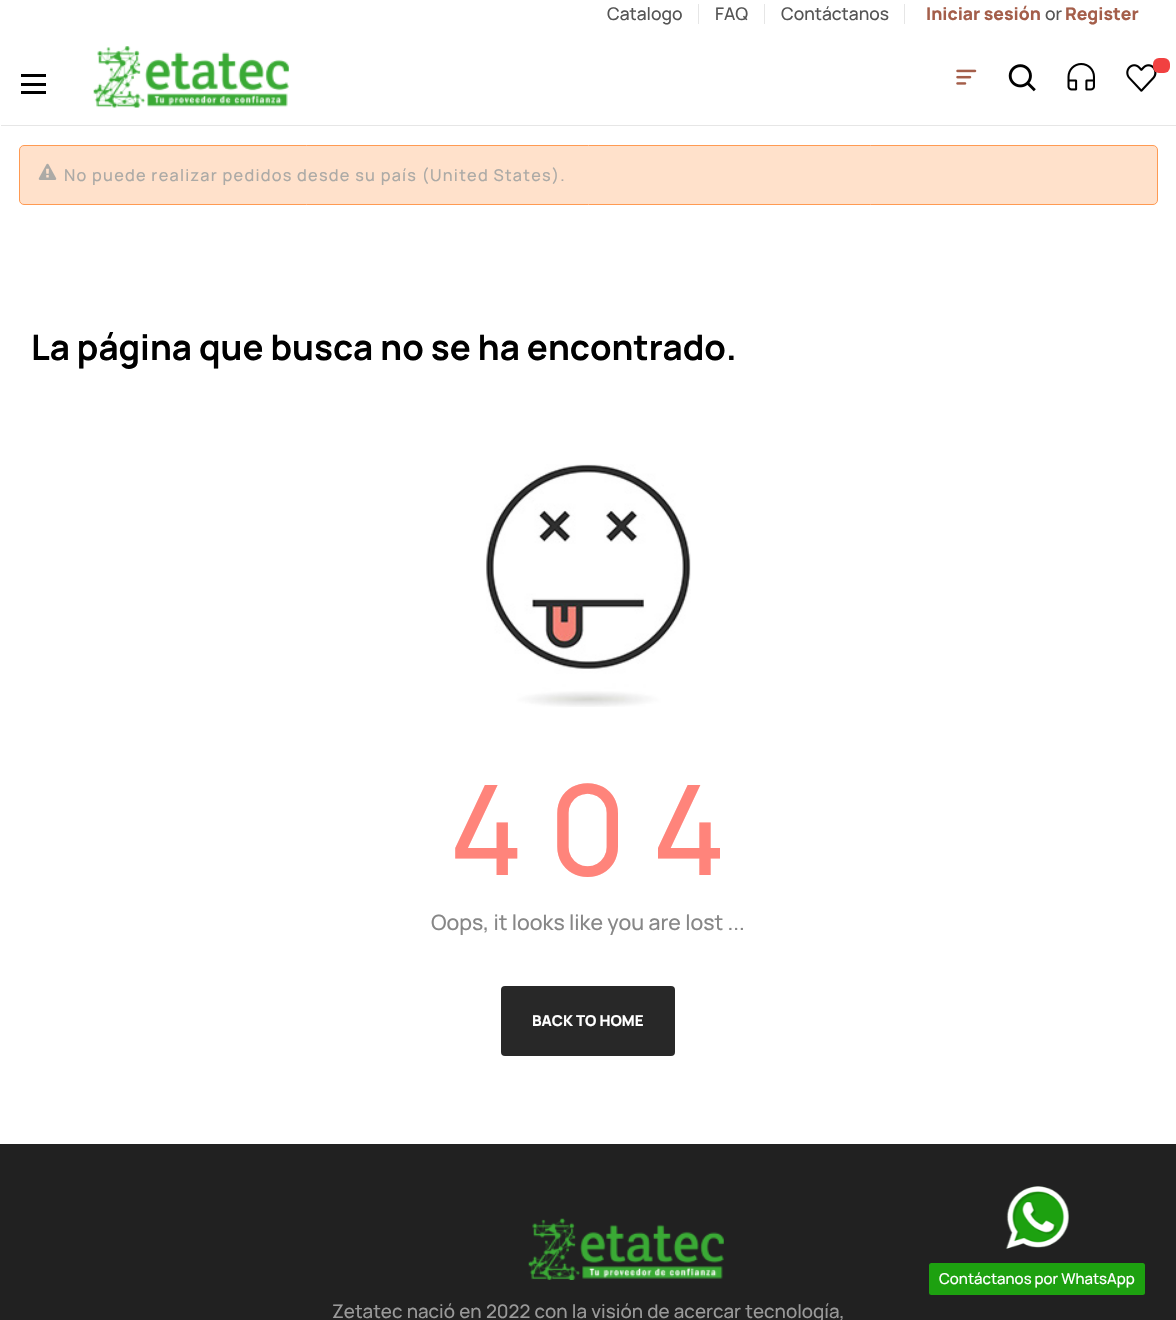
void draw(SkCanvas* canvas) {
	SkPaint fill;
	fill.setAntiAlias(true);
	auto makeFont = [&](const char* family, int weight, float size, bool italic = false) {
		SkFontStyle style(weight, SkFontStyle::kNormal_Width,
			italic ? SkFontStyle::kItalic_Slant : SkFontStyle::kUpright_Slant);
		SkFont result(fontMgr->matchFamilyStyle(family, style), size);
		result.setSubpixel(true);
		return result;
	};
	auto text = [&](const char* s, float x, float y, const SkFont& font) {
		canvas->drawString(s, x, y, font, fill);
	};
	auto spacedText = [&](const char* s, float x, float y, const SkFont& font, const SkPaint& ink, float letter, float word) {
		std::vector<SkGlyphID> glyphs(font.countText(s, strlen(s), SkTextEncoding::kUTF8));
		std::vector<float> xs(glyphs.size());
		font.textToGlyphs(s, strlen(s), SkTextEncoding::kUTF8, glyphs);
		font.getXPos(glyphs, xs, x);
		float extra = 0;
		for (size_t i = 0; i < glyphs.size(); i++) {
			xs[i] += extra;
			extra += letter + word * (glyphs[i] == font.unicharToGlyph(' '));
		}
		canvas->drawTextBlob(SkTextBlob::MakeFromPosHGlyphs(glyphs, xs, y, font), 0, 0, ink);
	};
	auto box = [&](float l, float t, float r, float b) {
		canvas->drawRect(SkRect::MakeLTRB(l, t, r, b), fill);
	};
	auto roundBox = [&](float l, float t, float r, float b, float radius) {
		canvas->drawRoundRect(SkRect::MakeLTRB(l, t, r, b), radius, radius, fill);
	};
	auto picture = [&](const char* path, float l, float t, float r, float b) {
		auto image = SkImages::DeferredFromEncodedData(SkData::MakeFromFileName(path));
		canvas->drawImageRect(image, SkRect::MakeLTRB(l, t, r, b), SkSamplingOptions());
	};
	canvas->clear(0xFFFFFFFF);
	fill.setColor(0xFFE6E6E6);
	box(698, 4, 699, 24);
	box(764, 4, 765, 24);
	box(904, 4, 905, 24);
	picture("image0.png", 93, 46, 289, 108);
	picture("image1.png", 956, 69, 977, 85);
	picture("image2.png", 1008, 64, 1036, 92);
	picture("image3.png", 1067, 63, 1095, 91);
	picture("image4.png", 1126, 64, 1157, 92);
	fill.setColor(0xFFF14141);
	roundBox(1153, 58, 1170, 73, 6);
	fill.setColor(0xFFE6E6E6);
	box(1, 125, 1176, 126);
	fill.setColor(0xFF000000);
	box(21, 74, 46, 77);
	box(21, 91, 46, 94);
	box(21, 83, 46, 86);
	fill.setColor(0xFFFFE1CB);
	canvas->drawRoundRect(SkRect::MakeLTRB(19.5f, 145.5f, 1157.5f, 204.5f), 4.5f, 4.5f, fill);
	fill.setStyle(SkPaint::kStroke_Style);
	fill.setStrokeWidth(1);
	fill.setColor(0xFFFF9A52);
	canvas->drawRoundRect(SkRect::MakeLTRB(19.5f, 145.5f, 1157.5f, 204.5f), 4.5f, 4.5f, fill);
	picture("image5.png", 38, 163, 57, 180);
	picture("image6.png", 486, 464, 691, 707);
	fill.setStyle(SkPaint::kFill_Style);
	fill.setColor(0xFF282828);
	roundBox(501, 986, 675, 1056, 4);
	fill.setColor(0xFF212121);
	box(0, 1144, 1176, 1320);
	picture("image7.png", 1005, 1186, 1069, 1249);
	fill.setColor(0xFF1DA110);
	roundBox(929, 1263, 1145, 1295, 2.5f);
	picture("image8.png", 528, 1218, 724, 1280);
	auto font1 = makeFont("Manrope", 500, 17.5f);
	fill.setColor(0xFF555555);
	text("Catalogo", 607, 20, font1);
	text("FAQ", 715, 20, font1);
	text("Contáctanos", 781, 20, font1);
	auto font2 = makeFont("Manrope", 800, 17.5f);
	fill.setColor(0xFFA45E4A);
	text("Iniciar sesión", 926, 20, font2);
	fill.setColor(0xFF555555);
	text("or", 1045, 20, font1);
	fill.setColor(0xFFA45E4A);
	text("Register", 1065, 20, font2);
	auto font3 = makeFont("Manrope", 500, 16.25f);
	fill.setColor(0xFFACAAA6);
	spacedText("No puede realizar pedidos desde su país (United States).", 64, 181, font3, fill, 1.25f, 0);
	auto font4 = makeFont("Manrope", 700, 35);
	fill.setColor(0xFF000000);
	text("La página que busca no se ha encontrado.", 31, 360, font4);
	auto font5 = makeFont("Manrope", 500, 125);
	fill.setColor(0xFFFF847B);
	text("4 0 4", 449, 875, font5);
	auto font6 = makeFont("Manrope", 500, 21.25f);
	fill.setColor(0xFF878787);
	text("Oops, it looks like you are lost ...", 431, 930, font6);
	auto font7 = makeFont("Manrope", 800, 15);
	fill.setColor(0xFFFFFFFF);
	text("BACK TO HOME", 532, 1026, font7);
	auto font8 = makeFont("Manrope", 500, 15);
	text("Contáctanos por WhatsApp", 939, 1284, font8);
	auto font9 = makeFont("Manrope", 500, 18.75f);
	fill.setColor(0xFF999999);
	spacedText("Zetatec nació en 2022 con la visión de acercar tecnología,", 332, 1318, font9, fill, 0, 0.5f);
}
